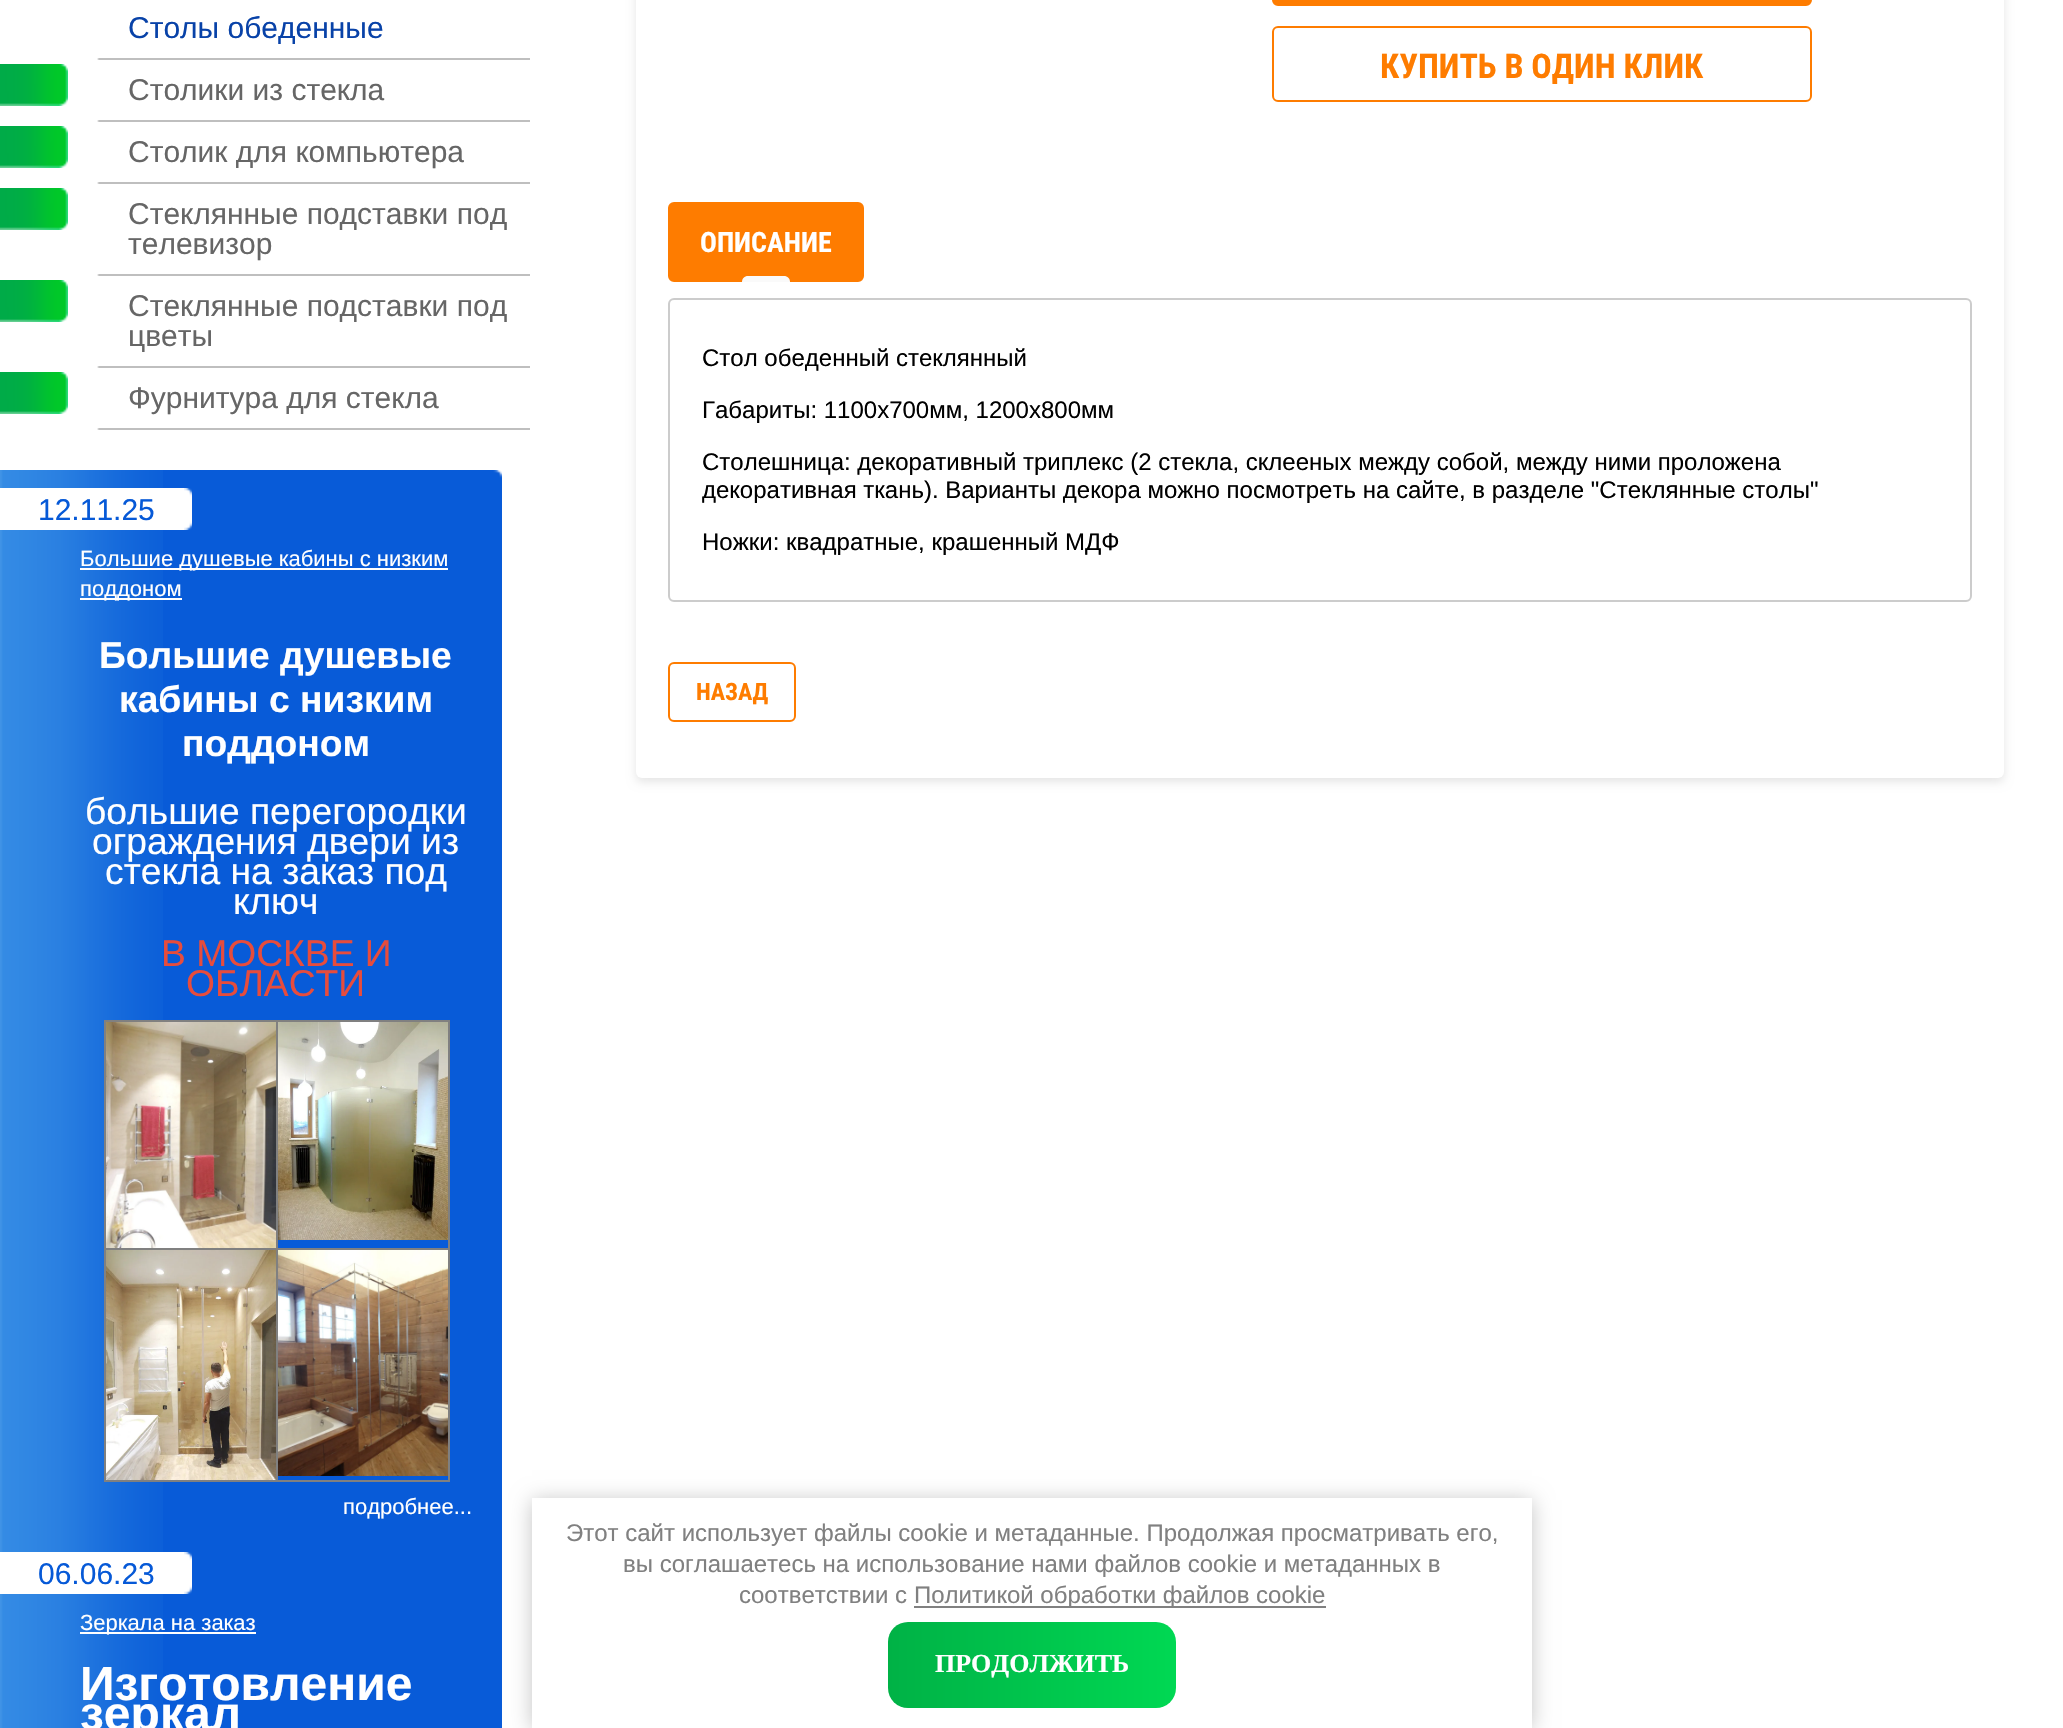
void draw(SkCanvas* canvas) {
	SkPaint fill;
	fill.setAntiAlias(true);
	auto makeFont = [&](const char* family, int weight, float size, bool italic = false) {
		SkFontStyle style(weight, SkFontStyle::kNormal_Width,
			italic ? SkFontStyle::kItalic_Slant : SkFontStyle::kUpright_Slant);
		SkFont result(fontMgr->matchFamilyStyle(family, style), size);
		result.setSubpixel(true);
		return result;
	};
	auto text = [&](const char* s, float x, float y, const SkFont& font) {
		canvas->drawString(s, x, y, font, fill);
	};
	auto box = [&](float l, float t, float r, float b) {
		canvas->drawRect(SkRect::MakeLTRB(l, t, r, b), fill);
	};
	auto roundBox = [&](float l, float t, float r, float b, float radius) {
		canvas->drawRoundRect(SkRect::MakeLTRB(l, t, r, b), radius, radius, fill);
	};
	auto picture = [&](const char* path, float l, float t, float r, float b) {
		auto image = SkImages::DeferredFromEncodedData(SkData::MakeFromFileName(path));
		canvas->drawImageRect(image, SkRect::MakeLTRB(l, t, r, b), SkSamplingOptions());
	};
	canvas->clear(0xFFFFFFFF);
	picture("image0.png", 97, 58, 530, 60);
	picture("image0.png", 97, 120, 530, 122);
	picture("image1.png", 0, 64, 68, 106);
	picture("image0.png", 97, 182, 530, 184);
	picture("image1.png", 0, 126, 68, 168);
	picture("image0.png", 97, 274, 530, 276);
	picture("image1.png", 0, 188, 68, 230);
	picture("image0.png", 97, 366, 530, 368);
	picture("image1.png", 0, 280, 68, 322);
	picture("image0.png", 97, 428, 530, 430);
	picture("image1.png", 0, 372, 68, 414);
	fill.setColor(0xFF085BD8);
	box(163, 470, 502, 1728);
	picture("image2.png", 0, 470, 163, 1728);
	picture("image3.png", 493, 470, 502, 478);
	fill.setColor(0xFFFFFFFF);
	box(0, 488, 184, 530);
	picture("image4.png", 184, 488, 192, 530);
	box(80, 568, 448, 570);
	box(80, 598, 182, 600);
	fill.setColor(0xFF808080);
	box(104, 1020, 450, 1022);
	box(448, 1020, 450, 1482);
	box(104, 1480, 450, 1482);
	box(104, 1020, 106, 1482);
	picture("image5.png", 106, 1022, 276, 1248);
	box(276, 1248, 450, 1250);
	box(276, 1248, 278, 1482);
	box(104, 1248, 278, 1250);
	box(276, 1020, 278, 1250);
	picture("image6.png", 278, 1022, 448, 1240);
	picture("image7.png", 106, 1250, 276, 1480);
	picture("image8.png", 278, 1250, 448, 1476);
	fill.setColor(0xFFFFFFFF);
	box(0, 1552, 184, 1594);
	picture("image4.png", 184, 1552, 192, 1594);
	box(80, 1632, 256, 1634);
	fill.setColor(0x1A000000);
	fill.setMaskFilter(SkMaskFilter::MakeBlur(kNormal_SkBlurStyle, 5));
	canvas->drawRoundRect(SkRect::MakeLTRB(636, -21, 2004, 782), 6, 6, fill);
	fill.setMaskFilter(nullptr);
	fill.setColor(0xFFFFFFFF);
	roundBox(636, -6, 2004, 778, 6);
	fill.setColor(0xFFFE7C00);
	canvas->drawRoundRect(SkRect::MakeLTRB(1273, -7, 1811, 5), 5, 5, fill);
	fill.setStyle(SkPaint::kStroke_Style);
	fill.setStrokeWidth(2);
	canvas->drawRoundRect(SkRect::MakeLTRB(1273, -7, 1811, 5), 5, 5, fill);
	canvas->drawRoundRect(SkRect::MakeLTRB(1273, 27, 1811, 101), 5, 5, fill);
	fill.setStyle(SkPaint::kFill_Style);
	canvas->drawRoundRect(SkRect::MakeLTRB(669, 203, 863, 281), 5, 5, fill);
	fill.setStyle(SkPaint::kStroke_Style);
	canvas->drawRoundRect(SkRect::MakeLTRB(669, 203, 863, 281), 5, 5, fill);
	fill.setStyle(SkPaint::kFill_Style);
	fill.setColor(0xFFFAFAFA);
	canvas->drawPath(SkPathBuilder().moveTo(748, 276).lineTo(784, 276).cubicTo(787.5f, 276, 790, 278.5f, 790, 282).lineTo(742, 282).cubicTo(742, 278.5f, 744.5f, 276, 748, 276).close().detach(), fill);
	fill.setStyle(SkPaint::kStroke_Style);
	fill.setColor(0xFFCCCCCC);
	canvas->drawRoundRect(SkRect::MakeLTRB(669, 299, 1971, 601), 5, 5, fill);
	fill.setColor(0xFFFE7C00);
	canvas->drawRoundRect(SkRect::MakeLTRB(669, 663, 795, 721), 5, 5, fill);
	canvas->save();
	canvas->clipPath(SkPathBuilder(SkPathFillType::kEvenOdd).moveTo(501, 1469).lineTo(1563, 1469).lineTo(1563, 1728).lineTo(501, 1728).close().moveTo(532, 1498).lineTo(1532, 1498).lineTo(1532, 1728).lineTo(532, 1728).close().detach(), true);
	fill.setStyle(SkPaint::kFill_Style);
	fill.setColor(0x3B000000);
	fill.setMaskFilter(SkMaskFilter::MakeBlur(kNormal_SkBlurStyle, 10));
	canvas->drawRect(SkRect::MakeLTRB(532, 1500, 1532, 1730), fill);
	fill.setMaskFilter(nullptr);
	canvas->restore();
	fill.setColor(0xFF808080);
	box(914, 1606, 1326, 1608);
	{
		const SkColor colors[] = {0xFF00B246, 0xFF00D853};
		const float stops[] = {0, 1};
		const SkPoint ends[] = {{888, 1665}, {1176, 1665}};
		fill.setShader(SkGradientShader::MakeLinear(ends, colors, stops, 2, SkTileMode::kClamp));
		fill.setAlpha(255);
	}
	roundBox(888, 1622, 1176, 1708, 20);
	auto font1 = makeFont("Liberation Sans", 400, 30);
	fill.setShader(nullptr);
	fill.setColor(0xFF0842A8);
	text("Столы обеденные", 128, 38, font1);
	fill.setColor(0xFF666666);
	text("Столики из стекла", 128, 100, font1);
	text("Столик для компьютера", 128, 162, font1);
	text("Стеклянные подставки под", 128, 224, font1);
	text("телевизор", 128, 254, font1);
	text("Стеклянные подставки под", 128, 316, font1);
	text("цветы", 128, 346, font1);
	text("Фурнитура для стекла", 128, 408, font1);
	fill.setColor(0xFF0659D7);
	text("12.11.25", 38, 520, font1);
	auto font2 = makeFont("Liberation Sans", 400, 22);
	fill.setColor(0xFFFFFFFF);
	text("Большие душевые кабины с низким", 80, 566, font2);
	text("поддоном", 80, 596, font2);
	auto font3 = makeFont("Liberation Sans", 700, 37.25f);
	text("Большие душевые", 99, 668, font3);
	text("кабины с низким", 119, 712, font3);
	text("поддоном", 182, 756, font3);
	auto font4 = makeFont("Liberation Sans", 400, 37.25f);
	text("большие перегородки", 85, 824, font4);
	text("ограждения двери из", 92, 854, font4);
	text("стекла на заказ под", 105, 884, font4);
	text("ключ", 233, 914, font4);
	fill.setColor(0xFFE74C3C);
	text("В МОСКВЕ И", 161, 966, font4);
	text("ОБЛАСТИ", 186, 996, font4);
	fill.setColor(0xFFFFFFFF);
	text("подробнее...", 343, 1514, font2);
	fill.setColor(0xFF0659D7);
	text("06.06.23", 38, 1584, font1);
	fill.setColor(0xFFFFFFFF);
	text("Зеркала на заказ", 80, 1630, font2);
	auto font5 = makeFont("Liberation Sans", 700, 48);
	text("Изготовление", 80, 1700, font5);
	text("зеркал", 80, 1730, font5);
	auto font6 = makeFont("Roboto Condensed", 700, 34);
	fill.setColor(0xFFFE7C00);
	text("КУПИТЬ В ОДИН КЛИК", 1380, 78, font6);
	auto font7 = makeFont("Roboto Condensed", 700, 28);
	fill.setColor(0xFFFFFFFF);
	text("ОПИСАНИЕ", 700, 252, font7);
	auto font8 = makeFont("Liberation Sans", 400, 24);
	fill.setColor(0xFF000000);
	text("Стол обеденный стеклянный", 702, 366, font8);
	text("Габариты: 1100х700мм, 1200х800мм", 702, 418, font8);
	text("Столешница: декоративный триплекс (2 стекла, склееных между собой, между ними проложена", 702, 470, font8);
	text("декоративная ткань). Варианты декора можно посмотреть на сайте, в разделе \"Стеклянные столы\"", 702, 498, font8);
	text("Ножки: квадратные, крашенный МДФ", 702, 550, font8);
	auto font9 = makeFont("Roboto Condensed", 700, 24);
	fill.setColor(0xFFFE7C00);
	text("НАЗАД", 696, 700, font9);
	fill.setColor(0xFF808080);
	text("Этот сайт использует файлы cookie и метаданные. Продолжая просматривать его,", 566, 1541, font8);
	text("вы соглашаетесь на использование нами файлов cookie и метаданных в", 623, 1572, font8);
	text("соответствии с", 739, 1603, font8);
	text("Политикой обработки файлов cookie", 914, 1603, font8);
	auto font10 = makeFont("Liberation Serif", 700, 26);
	fill.setColor(0xFFFFFFFF);
	text("ПРОДОЛЖИТЬ", 935, 1672, font10);
}
